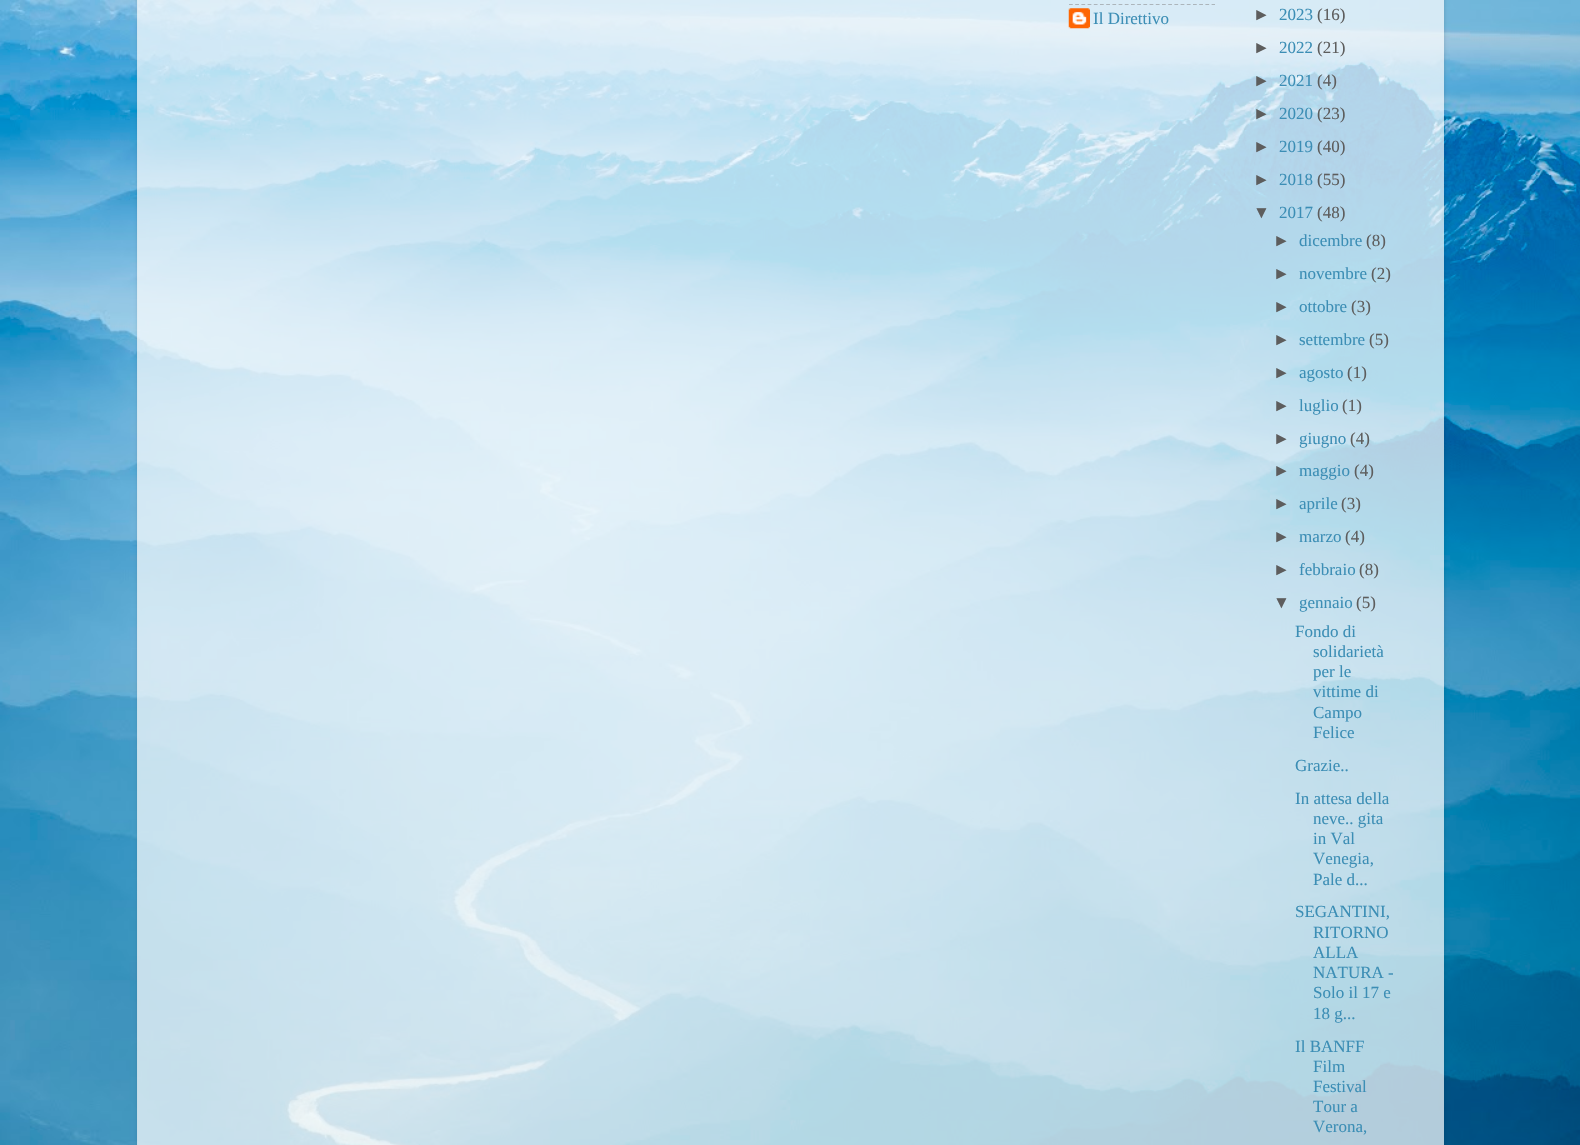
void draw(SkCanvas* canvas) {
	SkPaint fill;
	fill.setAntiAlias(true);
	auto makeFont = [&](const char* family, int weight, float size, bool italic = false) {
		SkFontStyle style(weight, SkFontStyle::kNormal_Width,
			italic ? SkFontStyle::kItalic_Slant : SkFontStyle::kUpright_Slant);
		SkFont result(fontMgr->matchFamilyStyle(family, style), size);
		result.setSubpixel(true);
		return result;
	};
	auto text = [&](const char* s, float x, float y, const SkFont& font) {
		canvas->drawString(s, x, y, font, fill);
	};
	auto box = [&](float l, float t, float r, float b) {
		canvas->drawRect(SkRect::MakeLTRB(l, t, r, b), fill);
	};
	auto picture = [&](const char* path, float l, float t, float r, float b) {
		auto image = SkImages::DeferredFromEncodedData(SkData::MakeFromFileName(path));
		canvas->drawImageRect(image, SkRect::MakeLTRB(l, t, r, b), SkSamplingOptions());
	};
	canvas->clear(0xFFFFFFFF);
	picture("image0.png", 0, 0, 1580, 1145);
	canvas->save();
	canvas->clipPath(SkPathBuilder(SkPathFillType::kEvenOdd).moveTo(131, 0).lineTo(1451, 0).lineTo(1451, 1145).lineTo(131, 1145).close().moveTo(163, -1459).lineTo(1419, -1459).cubicTo(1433, -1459, 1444, -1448, 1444, -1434).lineTo(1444, 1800).lineTo(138, 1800).lineTo(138, -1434).cubicTo(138, -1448, 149, -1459, 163, -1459).close().detach(), true);
	fill.setColor(0x26000000);
	fill.setMaskFilter(SkMaskFilter::MakeBlur(kNormal_SkBlurStyle, 2));
	canvas->drawRoundRect(SkRect::MakeLTRB(138, -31, 1444, 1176), 25, 25, fill);
	fill.setMaskFilter(nullptr);
	canvas->restore();
	fill.setColor(0xB3FFFFFF);
	box(137, 0, 1444, 1145);
	fill.setStyle(SkPaint::kStroke_Style);
	fill.setStrokeWidth(1.2f);
	fill.setColor(0xFFACB5BB);
	fill.setPathEffect(SkDashPathEffect::Make({{3.75f, 2.45f}}, 0));
	canvas->drawPath(SkPathBuilder().moveTo(1069, 4.5f).lineTo(1215, 4.5f).detach(), fill);
	fill.setPathEffect(nullptr);
	picture("image1.png", 1068, 8, 1090, 29);
	auto font1 = makeFont("Liberation Serif", 400, 17);
	fill.setStyle(SkPaint::kFill_Style);
	fill.setColor(0xFF3C8EB5);
	text("Il Direttivo", 1093, 24, font1);
	auto font2 = makeFont("Liberation Sans", 400, 17);
	fill.setColor(0xFF5D5D5D);
	text("►", 1253, 20, font2);
	fill.setColor(0xFF3C8EB5);
	text("2023", 1279, 20, font1);
	fill.setColor(0xFF5D5D5D);
	text("(16)", 1317, 20, font1);
	text("►", 1253, 53, font2);
	fill.setColor(0xFF3C8EB5);
	text("2022", 1279, 53, font1);
	fill.setColor(0xFF5D5D5D);
	text("(21)", 1317, 53, font1);
	text("►", 1253, 86, font2);
	fill.setColor(0xFF3C8EB5);
	text("2021", 1279, 86, font1);
	fill.setColor(0xFF5D5D5D);
	text("(4)", 1317, 86, font1);
	text("►", 1253, 119, font2);
	fill.setColor(0xFF3C8EB5);
	text("2020", 1279, 119, font1);
	fill.setColor(0xFF5D5D5D);
	text("(23)", 1317, 119, font1);
	text("►", 1253, 152, font2);
	fill.setColor(0xFF3C8EB5);
	text("2019", 1279, 152, font1);
	fill.setColor(0xFF5D5D5D);
	text("(40)", 1317, 152, font1);
	text("►", 1253, 185, font2);
	fill.setColor(0xFF3C8EB5);
	text("2018", 1279, 185, font1);
	fill.setColor(0xFF5D5D5D);
	text("(55)", 1317, 185, font1);
	text("▼", 1253, 218, font2);
	fill.setColor(0xFF3C8EB5);
	text("2017", 1279, 218, font1);
	fill.setColor(0xFF5D5D5D);
	text("(48)", 1317, 218, font1);
	text("►", 1273, 246, font2);
	fill.setColor(0xFF3C8EB5);
	text("dicembre", 1299, 246, font1);
	fill.setColor(0xFF5D5D5D);
	text("(8)", 1366, 246, font1);
	text("►", 1273, 279, font2);
	fill.setColor(0xFF3C8EB5);
	text("novembre", 1299, 279, font1);
	fill.setColor(0xFF5D5D5D);
	text("(2)", 1371, 279, font1);
	text("►", 1273, 312, font2);
	fill.setColor(0xFF3C8EB5);
	text("ottobre", 1299, 312, font1);
	fill.setColor(0xFF5D5D5D);
	text("(3)", 1351, 312, font1);
	text("►", 1273, 345, font2);
	fill.setColor(0xFF3C8EB5);
	text("settembre", 1299, 345, font1);
	fill.setColor(0xFF5D5D5D);
	text("(5)", 1369, 345, font1);
	text("►", 1273, 378, font2);
	fill.setColor(0xFF3C8EB5);
	text("agosto", 1299, 378, font1);
	fill.setColor(0xFF5D5D5D);
	text("(1)", 1347, 378, font1);
	text("►", 1273, 411, font2);
	fill.setColor(0xFF3C8EB5);
	text("luglio", 1299, 411, font1);
	fill.setColor(0xFF5D5D5D);
	text("(1)", 1342, 411, font1);
	text("►", 1273, 444, font2);
	fill.setColor(0xFF3C8EB5);
	text("giugno", 1299, 444, font1);
	fill.setColor(0xFF5D5D5D);
	text("(4)", 1350, 444, font1);
	text("►", 1273, 476, font2);
	fill.setColor(0xFF3C8EB5);
	text("maggio", 1299, 476, font1);
	fill.setColor(0xFF5D5D5D);
	text("(4)", 1354, 476, font1);
	text("►", 1273, 509, font2);
	fill.setColor(0xFF3C8EB5);
	text("aprile", 1299, 509, font1);
	fill.setColor(0xFF5D5D5D);
	text("(3)", 1341, 509, font1);
	text("►", 1273, 542, font2);
	fill.setColor(0xFF3C8EB5);
	text("marzo", 1299, 542, font1);
	fill.setColor(0xFF5D5D5D);
	text("(4)", 1345, 542, font1);
	text("►", 1273, 575, font2);
	fill.setColor(0xFF3C8EB5);
	text("febbraio", 1299, 575, font1);
	fill.setColor(0xFF5D5D5D);
	text("(8)", 1359, 575, font1);
	text("▼", 1273, 608, font2);
	fill.setColor(0xFF3C8EB5);
	text("gennaio", 1299, 608, font1);
	fill.setColor(0xFF5D5D5D);
	text("(5)", 1356, 608, font1);
	fill.setColor(0xFF3C8EB5);
	text("Fondo di", 1295, 637, font1);
	text("solidarietà", 1313, 657, font1);
	text("per le", 1313, 677, font1);
	text("vittime di", 1313, 697, font1);
	text("Campo", 1313, 718, font1);
	text("Felice", 1313, 738, font1);
	text("Grazie..", 1295, 771, font1);
	text("In attesa della", 1295, 804, font1);
	text("neve.. gita", 1313, 824, font1);
	text("in Val", 1313, 844, font1);
	text("Venegia,", 1313, 864, font1);
	text("Pale d...", 1313, 885, font1);
	text("SEGANTINI,", 1295, 917, font1);
	text("RITORNO", 1313, 938, font1);
	text("ALLA", 1313, 958, font1);
	text("NATURA -", 1313, 978, font1);
	text("Solo il 17 e", 1313, 998, font1);
	text("18 g...", 1313, 1019, font1);
	text("Il BANFF", 1295, 1052, font1);
	text("Film", 1313, 1072, font1);
	text("Festival", 1313, 1092, font1);
	text("Tour a", 1313, 1112, font1);
	text("Verona,", 1313, 1132, font1);
}
